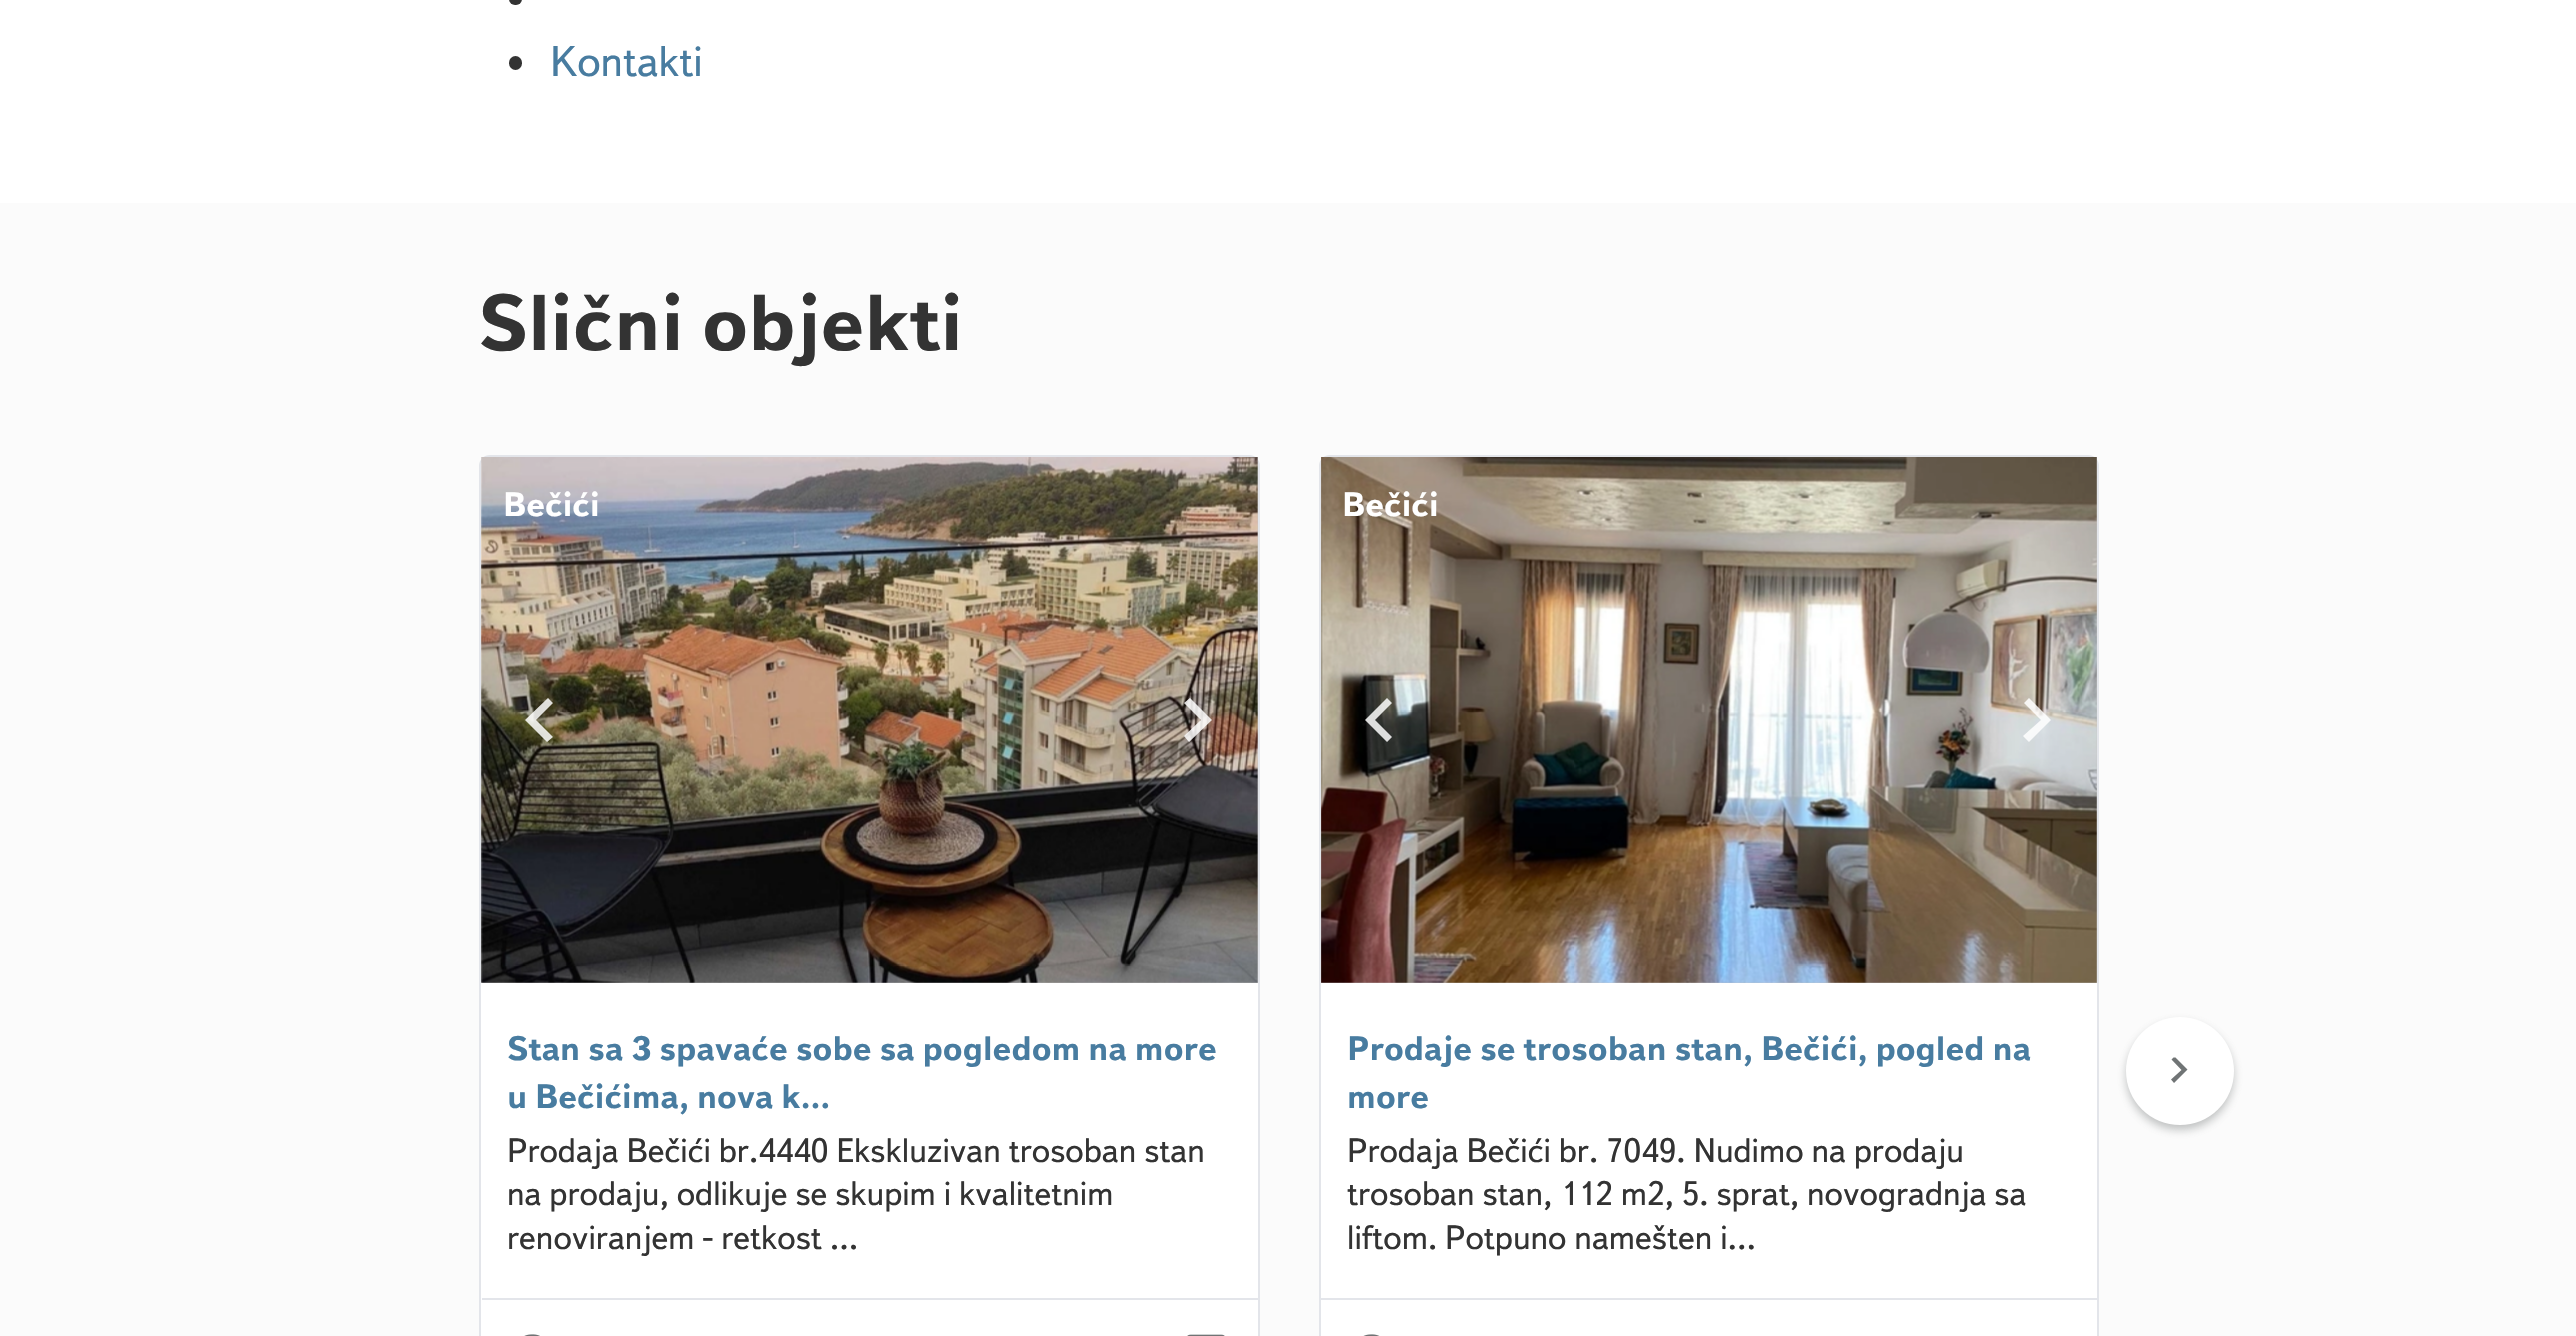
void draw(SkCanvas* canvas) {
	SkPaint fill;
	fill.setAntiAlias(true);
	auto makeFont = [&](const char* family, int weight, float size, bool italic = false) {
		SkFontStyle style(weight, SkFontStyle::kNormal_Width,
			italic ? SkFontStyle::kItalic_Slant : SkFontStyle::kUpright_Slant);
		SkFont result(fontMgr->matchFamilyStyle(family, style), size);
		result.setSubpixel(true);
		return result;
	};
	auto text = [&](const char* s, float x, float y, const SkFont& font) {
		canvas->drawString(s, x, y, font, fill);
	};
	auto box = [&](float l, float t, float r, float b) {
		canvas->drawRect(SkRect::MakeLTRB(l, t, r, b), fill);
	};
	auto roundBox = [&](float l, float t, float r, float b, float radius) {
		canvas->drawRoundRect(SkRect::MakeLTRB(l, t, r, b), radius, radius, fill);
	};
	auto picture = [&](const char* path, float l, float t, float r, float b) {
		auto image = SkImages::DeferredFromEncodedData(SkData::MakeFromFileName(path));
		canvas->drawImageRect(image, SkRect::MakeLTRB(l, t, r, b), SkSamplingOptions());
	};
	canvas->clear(0xFFFFFFFF);
	fill.setColor(0xFF333333);
	roundBox(509, -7, 522, 5, 6.5f);
	roundBox(509, 56, 522, 70, 6.5f);
	fill.setColor(0xFFFBFBFB);
	box(0, 203, 2576, 1336);
	fill.setColor(0xFFFFFFFF);
	canvas->drawRoundRect(SkRect::MakeLTRB(480, 456, 1259, 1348), 10, 10, fill);
	fill.setStyle(SkPaint::kStroke_Style);
	fill.setStrokeWidth(2);
	fill.setColor(0xFFE3E5EA);
	canvas->drawRoundRect(SkRect::MakeLTRB(480, 456, 1259, 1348), 10, 10, fill);
	fill.setStyle(SkPaint::kFill_Style);
	fill.setColor(0xFFC4C4C4);
	box(482, 457, 1258, 983);
	picture("image0.png", 481, 457, 1258, 983);
	fill.setColor(0xD6FFFFFF);
	canvas->drawPath(SkPathBuilder().moveTo(525, 720).lineTo(547, 742).lineTo(553, 737).lineTo(536, 720).lineTo(553, 703).lineTo(548, 698).close().detach(), fill);
	canvas->drawPath(SkPathBuilder().moveTo(1212, 720).lineTo(1190, 698).lineTo(1184, 703).lineTo(1201, 720).lineTo(1184, 736).lineTo(1189, 742).close().detach(), fill);
	fill.setColor(0xFFE3E5EA);
	box(482, 1298, 1258, 1300);
	picture("image1.png", 524, 1334, 540, 1336);
	picture("image2.png", 1187, 1334, 1225, 1336);
	fill.setColor(0xFFFFFFFF);
	canvas->drawRoundRect(SkRect::MakeLTRB(1320, 456, 2098, 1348), 10, 10, fill);
	fill.setStyle(SkPaint::kStroke_Style);
	fill.setColor(0xFFE3E5EA);
	canvas->drawRoundRect(SkRect::MakeLTRB(1320, 456, 2098, 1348), 10, 10, fill);
	fill.setStyle(SkPaint::kFill_Style);
	fill.setColor(0xFFC4C4C4);
	box(1321, 457, 2097, 983);
	picture("image3.png", 1321, 457, 2097, 983);
	fill.setColor(0xD6FFFFFF);
	canvas->drawPath(SkPathBuilder().moveTo(1365, 720).lineTo(1387, 742).lineTo(1392, 737).lineTo(1375, 720).lineTo(1392, 703).lineTo(1387, 698).close().detach(), fill);
	canvas->drawPath(SkPathBuilder().moveTo(2051, 720).lineTo(2029, 698).lineTo(2024, 703).lineTo(2041, 720).lineTo(2023, 736).lineTo(2029, 742).close().detach(), fill);
	fill.setColor(0xFFE3E5EA);
	box(1321, 1298, 2097, 1300);
	picture("image4.png", 1363, 1334, 1380, 1336);
	fill.setColor(0x6B707475);
	fill.setMaskFilter(SkMaskFilter::MakeBlur(kNormal_SkBlurStyle, 4.5f));
	canvas->drawRoundRect(SkRect::MakeLTRB(2126, 1022, 2234, 1130), 54, 54, fill);
	fill.setMaskFilter(nullptr);
	fill.setColor(0xFFFFFFFF);
	canvas->drawCircle(2180, 1071, 54, fill);
	fill.setColor(0xFF707475);
	canvas->drawPath(SkPathBuilder().moveTo(2187.5f, 1069.5f).lineTo(2174, 1083).lineTo(2171, 1079.5f).lineTo(2181.5f, 1070).lineTo(2171.5f, 1059.5f).lineTo(2173.5f, 1057.5f).lineTo(2175.5f, 1057.5f).close().detach(), fill);
	auto font1 = makeFont("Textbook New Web", 400, 43);
	fill.setColor(0xFF487CA0);
	text("Kontakti", 550, 76, font1);
	auto font2 = makeFont("Textbook New Web", 700, 78.75f);
	fill.setColor(0xFF333333);
	text("Slični objekti", 478, 350, font2);
	auto font3 = makeFont("Textbook New Web", 700, 33.75f);
	fill.setColor(0xFFFFFFFF);
	text("Bečići", 503, 516, font3);
	fill.setColor(0xFF487CA0);
	text("Stan sa 3 spavaće sobe sa pogledom na more", 507, 1060, font3);
	text("u Bečićima, nova k…", 507, 1108, font3);
	auto font4 = makeFont("Textbook New Web", 400, 33.75f);
	fill.setColor(0xFF333333);
	text("Prodaja Bečići br.4440 Ekskluzivan trosoban stan", 507, 1162, font4);
	text("na prodaju, odlikuje se skupim i kvalitetnim", 507, 1205, font4);
	text("renoviranjem - retkost …", 507, 1249, font4);
	fill.setColor(0xFFFFFFFF);
	text("Bečići", 1342, 516, font3);
	fill.setColor(0xFF487CA0);
	text("Prodaje se trosoban stan, Bečići, pogled na", 1347, 1060, font3);
	text("more", 1347, 1108, font3);
	fill.setColor(0xFF333333);
	text("Prodaja Bečići br. 7049. Nudimo na prodaju", 1347, 1162, font4);
	text("trosoban stan, 112 m2, 5. sprat, novogradnja sa", 1347, 1205, font4);
	text("liftom. Potpuno namešten i…", 1347, 1249, font4);
}
